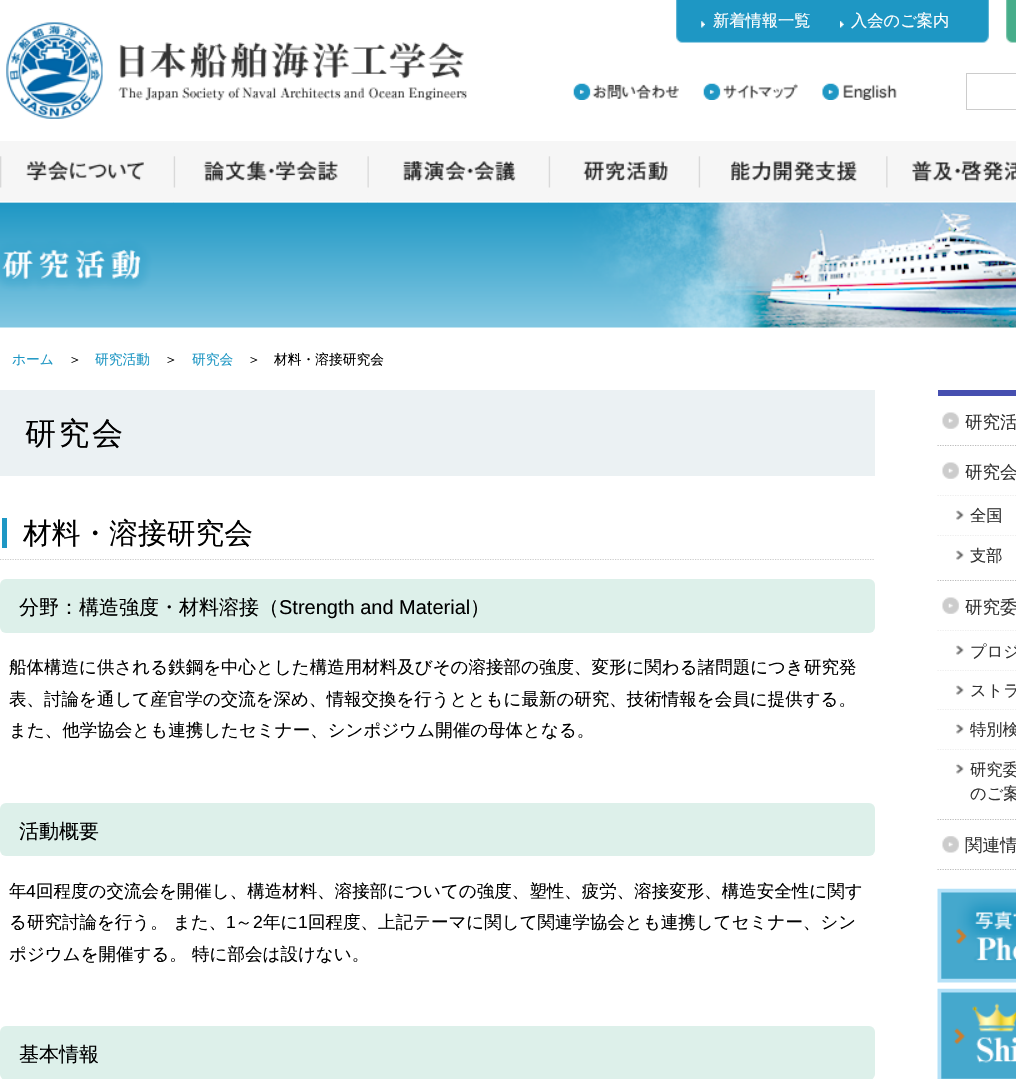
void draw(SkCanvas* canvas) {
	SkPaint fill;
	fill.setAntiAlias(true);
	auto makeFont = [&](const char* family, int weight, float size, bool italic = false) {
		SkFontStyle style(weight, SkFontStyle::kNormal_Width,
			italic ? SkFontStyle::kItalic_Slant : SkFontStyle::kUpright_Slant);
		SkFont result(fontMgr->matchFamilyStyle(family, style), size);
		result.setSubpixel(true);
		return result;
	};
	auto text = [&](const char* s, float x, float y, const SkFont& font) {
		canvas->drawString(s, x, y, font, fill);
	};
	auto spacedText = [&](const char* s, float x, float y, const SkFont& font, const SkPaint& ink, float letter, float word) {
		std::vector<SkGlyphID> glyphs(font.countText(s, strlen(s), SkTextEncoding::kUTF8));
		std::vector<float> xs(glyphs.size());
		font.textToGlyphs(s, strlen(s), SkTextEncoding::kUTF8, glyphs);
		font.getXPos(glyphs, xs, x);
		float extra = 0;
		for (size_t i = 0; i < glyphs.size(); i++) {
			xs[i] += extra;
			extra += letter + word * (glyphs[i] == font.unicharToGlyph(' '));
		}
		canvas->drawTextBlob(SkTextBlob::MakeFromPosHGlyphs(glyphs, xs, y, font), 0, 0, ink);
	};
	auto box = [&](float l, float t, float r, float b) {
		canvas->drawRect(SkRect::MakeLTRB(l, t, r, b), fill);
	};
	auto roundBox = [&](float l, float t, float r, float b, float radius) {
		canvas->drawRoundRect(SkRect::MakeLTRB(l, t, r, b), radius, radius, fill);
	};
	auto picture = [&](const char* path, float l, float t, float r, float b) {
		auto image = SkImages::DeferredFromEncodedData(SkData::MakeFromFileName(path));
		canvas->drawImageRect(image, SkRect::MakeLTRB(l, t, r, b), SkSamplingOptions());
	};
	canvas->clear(0xFFFFFFFF);
	picture("image0.png", 6, 22, 467, 119);
	picture("image1.png", 676, 0, 989, 43);
	picture("image2.png", 701, 21, 705, 28);
	picture("image3.png", 840, 21, 844, 28);
	picture("image4.png", 1006, 0, 1016, 43);
	picture("image5.png", 573, 83, 679, 100);
	picture("image6.png", 703, 83, 798, 100);
	picture("image7.png", 822, 83, 897, 100);
	fill.setStyle(SkPaint::kStroke_Style);
	fill.setStrokeWidth(1);
	fill.setColor(0xFFCCCCCC);
	canvas->drawRect(SkRect::MakeLTRB(966.5f, 73.5f, 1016.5f, 109.5f), fill);
	fill.setStyle(SkPaint::kFill_Style);
	fill.setColor(0xFFF6F6F6);
	box(0, 141, 1016, 203);
	picture("image8.png", 0, 201, 1016, 203);
	picture("image15.png", 0, 202, 1016, 203);
	picture("image16.png", 0, 202, 1016, 328);
	picture("image9.png", 0, 156, 174, 203);
	picture("image10.png", 173, 156, 368, 203);
	picture("image11.png", 367, 156, 549, 203);
	picture("image12.png", 548, 156, 699, 203);
	picture("image13.png", 698, 156, 887, 203);
	picture("image14.png", 886, 156, 1016, 203);
	fill.setColor(0xFFEBF1F3);
	box(0, 390, 875, 476);
	fill.setColor(0xFF1E97C4);
	box(2, 518, 7, 548);
	fill.setStyle(SkPaint::kStroke_Style);
	fill.setStrokeWidth(1.2f);
	fill.setColor(0xFFCCCCCC);
	fill.setPathEffect(SkDashPathEffect::Make({{1.25f, 1.25f}}, 0));
	canvas->drawPath(SkPathBuilder().moveTo(0, 559.5f).lineTo(875, 559.5f).detach(), fill);
	fill.setPathEffect(nullptr);
	fill.setStyle(SkPaint::kFill_Style);
	fill.setColor(0xFFDDF0EA);
	roundBox(0, 579, 875, 633, 6);
	roundBox(0, 803, 875, 856, 6);
	roundBox(0, 1026, 875, 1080, 6);
	fill.setColor(0xFF464FB0);
	box(938, 390, 1016, 396);
	fill.setStyle(SkPaint::kStroke_Style);
	fill.setColor(0xFFBBBBBB);
	fill.setPathEffect(SkDashPathEffect::Make({{1.25f, 1.25f}}, 0));
	canvas->drawPath(SkPathBuilder().moveTo(937.5f, 445.5f).lineTo(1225, 445.5f).detach(), fill);
	fill.setPathEffect(nullptr);
	picture("image17.png", 942, 412, 959, 429);
	fill.setPathEffect(SkDashPathEffect::Make({{1.25f, 1.25f}}, 0));
	canvas->drawPath(SkPathBuilder().moveTo(937.5f, 580.5f).lineTo(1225, 580.5f).detach(), fill);
	fill.setPathEffect(nullptr);
	picture("image17.png", 942, 462, 959, 479);
	fill.setColor(0xFFEEEEEE);
	fill.setPathEffect(SkDashPathEffect::Make({{1.25f, 1.25f}}, 0));
	canvas->drawPath(SkPathBuilder().moveTo(937.5f, 495.5f).lineTo(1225, 495.5f).detach(), fill);
	fill.setPathEffect(nullptr);
	picture("image18.png", 956, 510, 964, 520);
	fill.setPathEffect(SkDashPathEffect::Make({{1.25f, 1.25f}}, 0));
	canvas->drawPath(SkPathBuilder().moveTo(937.5f, 535.5f).lineTo(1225, 535.5f).detach(), fill);
	fill.setPathEffect(nullptr);
	picture("image18.png", 956, 550, 964, 560);
	fill.setColor(0xFFBBBBBB);
	fill.setPathEffect(SkDashPathEffect::Make({{1.25f, 1.25f}}, 0));
	canvas->drawPath(SkPathBuilder().moveTo(937.5f, 819.5f).lineTo(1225, 819.5f).detach(), fill);
	fill.setPathEffect(nullptr);
	picture("image17.png", 942, 597, 959, 614);
	fill.setColor(0xFFEEEEEE);
	fill.setPathEffect(SkDashPathEffect::Make({{1.25f, 1.25f}}, 0));
	canvas->drawPath(SkPathBuilder().moveTo(937.5f, 630.5f).lineTo(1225, 630.5f).detach(), fill);
	fill.setPathEffect(nullptr);
	picture("image18.png", 956, 645, 964, 655);
	fill.setPathEffect(SkDashPathEffect::Make({{1.25f, 1.25f}}, 0));
	canvas->drawPath(SkPathBuilder().moveTo(937.5f, 670.5f).lineTo(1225, 670.5f).detach(), fill);
	fill.setPathEffect(nullptr);
	picture("image18.png", 956, 685, 964, 695);
	fill.setPathEffect(SkDashPathEffect::Make({{1.25f, 1.25f}}, 0));
	canvas->drawPath(SkPathBuilder().moveTo(937.5f, 709.5f).lineTo(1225, 709.5f).detach(), fill);
	fill.setPathEffect(nullptr);
	picture("image19.png", 956, 723, 964, 734);
	fill.setPathEffect(SkDashPathEffect::Make({{1.25f, 1.25f}}, 0));
	canvas->drawPath(SkPathBuilder().moveTo(937.5f, 749.5f).lineTo(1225, 749.5f).detach(), fill);
	fill.setPathEffect(nullptr);
	picture("image19.png", 956, 763, 964, 774);
	fill.setColor(0xFFBBBBBB);
	fill.setPathEffect(SkDashPathEffect::Make({{1.25f, 1.25f}}, 0));
	canvas->drawPath(SkPathBuilder().moveTo(937.5f, 869.5f).lineTo(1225, 869.5f).detach(), fill);
	fill.setPathEffect(nullptr);
	picture("image20.png", 942, 836, 959, 853);
	picture("image21.png", 937, 888, 1016, 983);
	picture("image22.png", 937, 988, 1016, 1079);
	auto font1 = makeFont("WenQuanYi Zen Hei", 500, 16.25f);
	fill.setStyle(SkPaint::kFill_Style);
	fill.setColor(0xFFFFFFFF);
	text("新着情報一覧", 713, 26, font1);
	text("入会のご案内", 851, 26, font1);
	auto font2 = makeFont("WenQuanYi Zen Hei", 500, 13.75f);
	fill.setColor(0xFF1F97C4);
	text("ホーム", 12, 364, font2);
	fill.setColor(0xFF000000);
	text("＞", 68, 364, font2);
	fill.setColor(0xFF1F97C4);
	text("研究活動", 95, 364, font2);
	fill.setColor(0xFF000000);
	text("＞", 164, 364, font2);
	fill.setColor(0xFF1F97C4);
	text("研究会", 192, 364, font2);
	fill.setColor(0xFF000000);
	text("＞", 247, 364, font2);
	text("材料・溶接研究会", 274, 364, font2);
	auto font3 = makeFont("WenQuanYi Zen Hei", 500, 31);
	spacedText("研究会", 25, 444, font3, fill, 2.5f, 0);
	auto font4 = makeFont("WenQuanYi Zen Hei", 500, 28.75f);
	text("材料・溶接研究会", 23, 543, font4);
	auto font5 = makeFont("WenQuanYi Zen Hei", 500, 20);
	text("分野：構造強度・材料溶接（", 19, 614, font5);
	auto font6 = makeFont("Liberation Sans", 400, 20);
	text("Strength and Material", 279, 614, font6);
	text("）", 470, 614, font5);
	auto font7 = makeFont("WenQuanYi Zen Hei", 500, 17.5f);
	text("船体構造に供される鉄鋼を中心とした構造用材料及びその溶接部の強度、変形に関わる諸問題につき研究発", 9, 673, font7);
	text("表、討論を通して産官学の交流を深め、情報交換を行うとともに最新の研究、技術情報を会員に提供する。", 9, 705, font7);
	text("また、他学協会とも連携したセミナー、シンポジウム開催の母体となる。", 9, 736, font7);
	text("活動概要", 19, 838, font5);
	text("年", 9, 897, font7);
	auto font8 = makeFont("Liberation Sans", 400, 17.5f);
	text("4", 26, 897, font8);
	text("回程度の交流会を開催し、構造材料、溶接部についての強度、塑性、疲労、溶接変形、構造安全性に関す", 36, 897, font7);
	text("る研究討論を行う。 また、", 9, 928, font7);
	text("1", 226, 928, font8);
	text("～", 235, 928, font7);
	text("2", 253, 928, font8);
	text("年に", 263, 928, font7);
	text("1", 298, 928, font8);
	text("回程度、上記テーマに関して関連学協会とも連携してセミナー、シン", 308, 928, font7);
	text("ポジウムを開催する。 特に部会は設けない。", 9, 960, font7);
	text("基本情報", 19, 1061, font5);
	fill.setColor(0xFF333333);
	text("研究活", 965, 428, font7);
	text("研究会", 965, 478, font7);
	text("全国", 970, 521, font1);
	text("支部", 970, 561, font1);
	text("研究委", 965, 613, font7);
	text("プロジ", 970, 657, font1);
	text("ストラ", 970, 696, font1);
	text("特別検", 970, 735, font1);
	text("研究委", 970, 775, font1);
	text("のご案", 970, 799, font1);
	text("関連情", 965, 851, font7);
}
